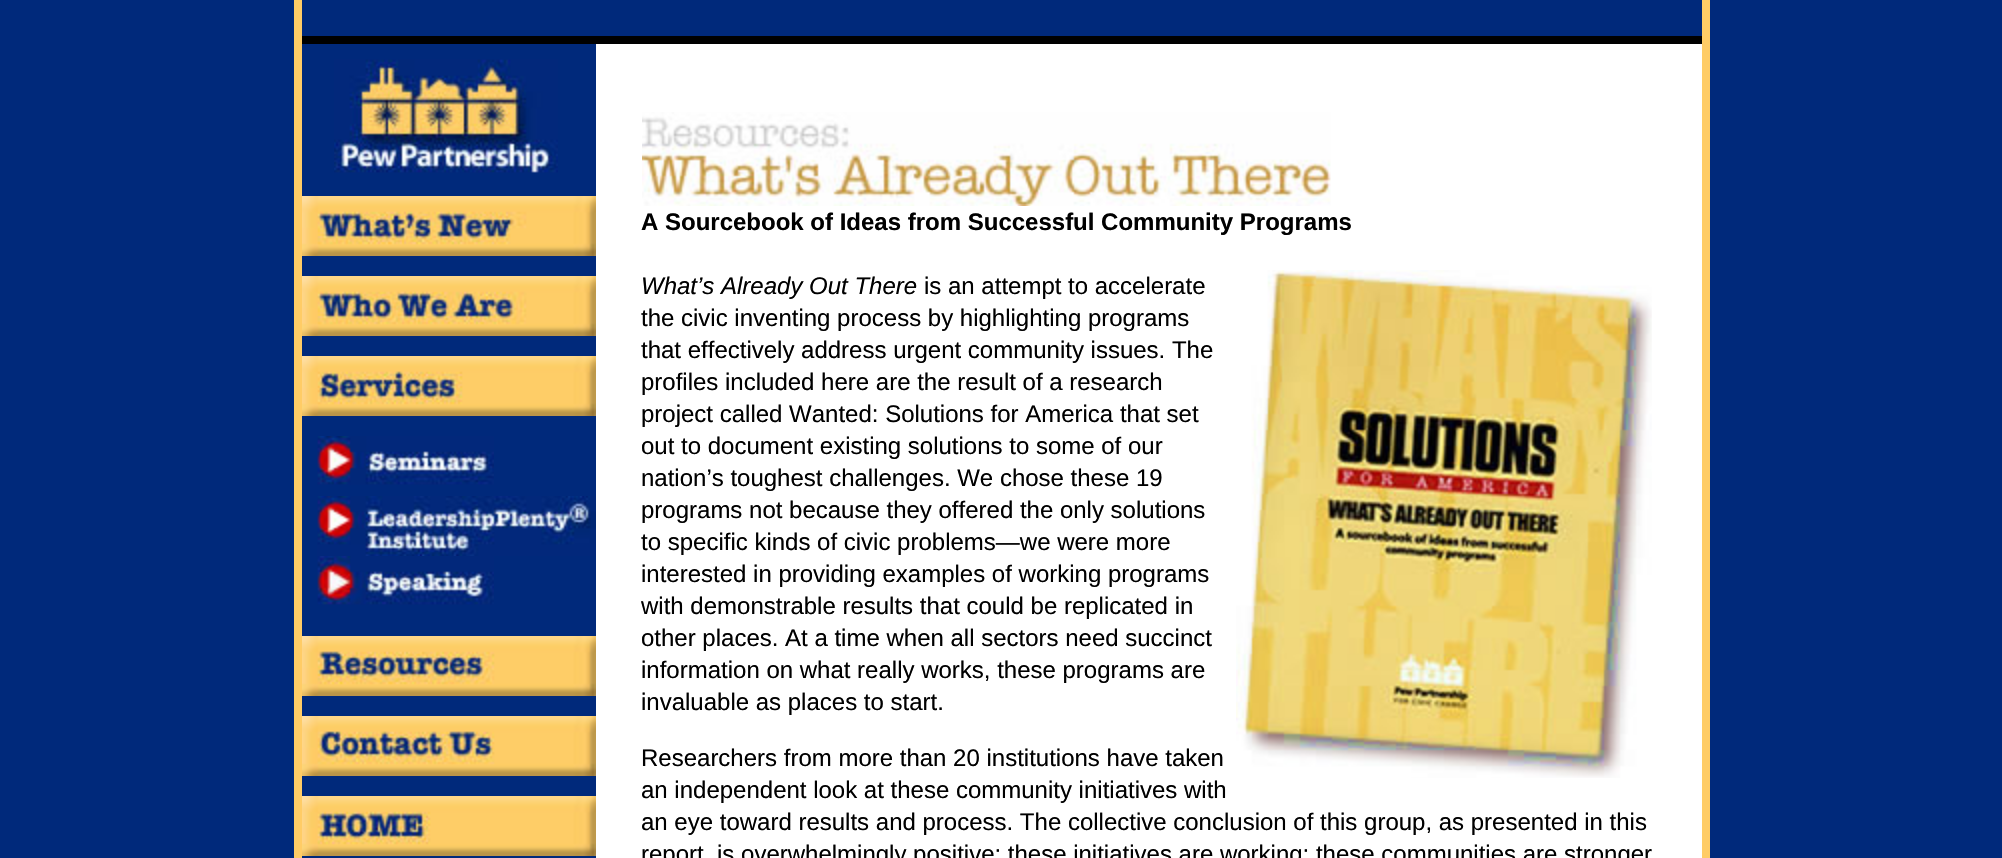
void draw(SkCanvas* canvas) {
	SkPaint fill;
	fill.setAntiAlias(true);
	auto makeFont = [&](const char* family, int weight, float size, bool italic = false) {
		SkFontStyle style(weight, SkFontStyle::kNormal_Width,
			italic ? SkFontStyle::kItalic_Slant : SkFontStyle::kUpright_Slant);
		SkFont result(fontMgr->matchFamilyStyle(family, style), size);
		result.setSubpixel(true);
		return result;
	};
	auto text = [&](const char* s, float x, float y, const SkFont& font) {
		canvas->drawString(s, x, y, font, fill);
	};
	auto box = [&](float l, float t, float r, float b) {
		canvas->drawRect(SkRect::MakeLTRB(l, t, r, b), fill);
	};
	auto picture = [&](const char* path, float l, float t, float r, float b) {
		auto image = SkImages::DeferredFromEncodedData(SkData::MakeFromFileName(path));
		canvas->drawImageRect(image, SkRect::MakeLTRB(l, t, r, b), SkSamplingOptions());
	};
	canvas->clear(0xFF00297B);
	fill.setColor(0xFFFFCC66);
	box(294, 0, 302, 858);
	fill.setColor(0xFF000000);
	box(302, 36, 1702, 44);
	picture("image0.png", 334, 59, 558, 173);
	picture("image1.png", 302, 196, 596, 256);
	picture("image2.png", 302, 276, 596, 336);
	picture("image3.png", 302, 356, 596, 416);
	picture("image4.png", 317, 436, 494, 485);
	picture("image5.png", 317, 496, 596, 556);
	picture("image6.png", 317, 556, 494, 605);
	picture("image7.png", 302, 636, 596, 696);
	picture("image8.png", 302, 716, 596, 776);
	picture("image9.png", 302, 796, 596, 856);
	fill.setColor(0xFFFFFFFF);
	box(596, 44, 1702, 858);
	picture("image10.png", 642, 112, 1331, 206);
	picture("image11.png", 1236, 270, 1652, 778);
	fill.setColor(0xFFFFCC66);
	box(1702, 0, 1710, 858);
	auto font1 = makeFont("Liberation Sans", 700, 24);
	fill.setColor(0xFF000000);
	text("A Sourcebook of Ideas from Successful Community Programs", 641, 230, font1);
	auto font2 = makeFont("Liberation Sans", 400, 24, true);
	text("What’s Already Out There", 641, 294, font2);
	auto font3 = makeFont("Liberation Sans", 400, 24);
	text("is an attempt to accelerate", 924, 294, font3);
	text("the civic inventing process by highlighting programs", 641, 326, font3);
	text("that effectively address urgent community issues. The", 641, 358, font3);
	text("profiles included here are the result of a research", 641, 390, font3);
	text("project called Wanted: Solutions for America that set", 641, 422, font3);
	text("out to document existing solutions to some of our", 641, 454, font3);
	text("nation’s toughest challenges. We chose these 19", 641, 486, font3);
	text("programs not because they offered the only solutions", 641, 518, font3);
	text("to specific kinds of civic problems—we were more", 641, 550, font3);
	text("interested in providing examples of working programs", 641, 582, font3);
	text("with demonstrable results that could be replicated in", 641, 614, font3);
	text("other places. At a time when all sectors need succinct", 641, 646, font3);
	text("information on what really works, these programs are", 641, 678, font3);
	text("invaluable as places to start.", 641, 710, font3);
	text("Researchers from more than 20 institutions have taken", 641, 766, font3);
	text("an independent look at these community initiatives with", 641, 798, font3);
	text("an eye toward results and process. The collective conclusion of this group, as presented in this", 641, 830, font3);
	text("report, is overwhelmingly positive: these initiatives are working; these communities are stronger", 641, 862, font3);
}
